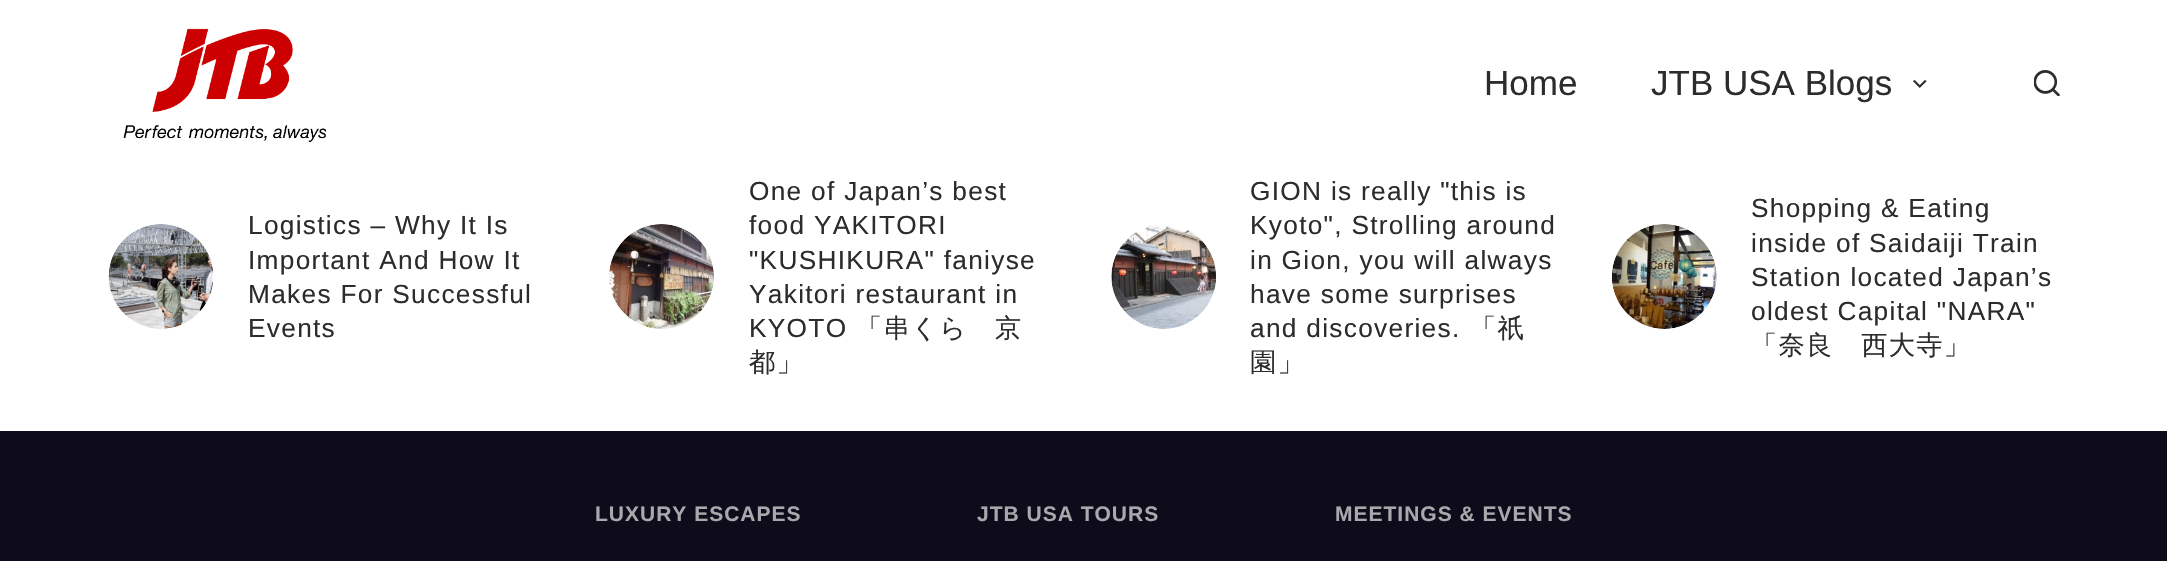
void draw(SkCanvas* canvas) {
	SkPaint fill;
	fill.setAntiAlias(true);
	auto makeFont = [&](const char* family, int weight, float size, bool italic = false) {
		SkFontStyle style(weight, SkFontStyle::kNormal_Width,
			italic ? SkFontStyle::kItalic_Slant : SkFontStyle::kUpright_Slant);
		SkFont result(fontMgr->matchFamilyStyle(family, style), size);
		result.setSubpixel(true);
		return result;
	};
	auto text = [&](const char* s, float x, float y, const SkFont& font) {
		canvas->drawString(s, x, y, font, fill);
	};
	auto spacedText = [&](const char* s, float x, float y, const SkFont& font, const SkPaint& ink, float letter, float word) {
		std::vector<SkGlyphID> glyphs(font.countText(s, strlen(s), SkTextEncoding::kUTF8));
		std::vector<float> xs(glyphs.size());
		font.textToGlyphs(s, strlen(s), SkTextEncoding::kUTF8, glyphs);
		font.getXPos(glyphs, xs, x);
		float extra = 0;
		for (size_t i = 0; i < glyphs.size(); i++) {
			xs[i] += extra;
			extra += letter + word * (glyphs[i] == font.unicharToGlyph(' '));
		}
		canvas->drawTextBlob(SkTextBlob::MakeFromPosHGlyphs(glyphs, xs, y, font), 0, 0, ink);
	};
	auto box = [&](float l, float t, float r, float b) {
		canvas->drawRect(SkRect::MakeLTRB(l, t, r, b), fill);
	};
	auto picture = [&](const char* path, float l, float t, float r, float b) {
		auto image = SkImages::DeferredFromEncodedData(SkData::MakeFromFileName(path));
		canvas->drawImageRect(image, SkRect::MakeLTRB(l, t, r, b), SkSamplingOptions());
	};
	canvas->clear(0xFFFFFFFF);
	picture("image0.png", 123, 28, 327, 142);
	picture("image1.png", 1913, 80, 1927, 88);
	picture("image2.png", 2034, 70, 2060, 96);
	picture("image3.png", 108, 224, 213, 329);
	picture("image4.png", 609, 224, 714, 329);
	picture("image5.png", 1111, 224, 1216, 329);
	picture("image6.png", 1612, 224, 1717, 329);
	fill.setColor(0xFF0E0C1B);
	box(0, 431, 2167, 561);
	auto font1 = makeFont("Liberation Sans", 400, 35);
	fill.setColor(0xFF2C2C2C);
	text("Home", 1484, 95, font1);
	text("JTB USA Blogs", 1651, 95, font1);
	auto font2 = makeFont("Liberation Sans", 400, 26.25f);
	spacedText("Logistics – Why It Is", 248, 234, font2, fill, 1.3f, 0);
	spacedText("Important And How It", 248, 269, font2, fill, 1.3f, 0);
	spacedText("Makes For Successful", 248, 303, font2, fill, 1.3f, 0);
	spacedText("Events", 248, 337, font2, fill, 1.3f, 0);
	spacedText("One of Japan’s best", 749, 200, font2, fill, 1.3f, 0);
	spacedText("food YAKITORI", 749, 234, font2, fill, 1.3f, 0);
	spacedText("\"KUSHIKURA\" faniyse", 749, 269, font2, fill, 1.3f, 0);
	spacedText("Yakitori restaurant in", 749, 303, font2, fill, 1.3f, 0);
	spacedText("KYOTO", 749, 337, font2, fill, 1.3f, 0);
	auto font3 = makeFont("WenQuanYi Zen Hei", 500, 26.25f);
	spacedText("「串くら　京", 856, 337, font3, fill, 1.3f, 0);
	spacedText("都」", 749, 371, font3, fill, 1.3f, 0);
	spacedText("GION is really \"this is", 1250, 200, font2, fill, 1.3f, 0);
	spacedText("Kyoto\", Strolling around", 1250, 234, font2, fill, 1.3f, 0);
	spacedText("in Gion, you will always", 1250, 269, font2, fill, 1.3f, 0);
	spacedText("have some surprises", 1250, 303, font2, fill, 1.3f, 0);
	spacedText("and discoveries.", 1250, 337, font2, fill, 1.3f, 0);
	spacedText("「祇", 1470, 337, font3, fill, 1.3f, 0);
	spacedText("園」", 1250, 371, font3, fill, 1.3f, 0);
	spacedText("Shopping & Eating", 1751, 217, font2, fill, 1.3f, 0);
	spacedText("inside of Saidaiji Train", 1751, 252, font2, fill, 1.3f, 0);
	spacedText("Station located Japan’s", 1751, 286, font2, fill, 1.3f, 0);
	spacedText("oldest Capital \"NARA\"", 1751, 320, font2, fill, 1.3f, 0);
	spacedText("「奈良　西大寺」", 1751, 354, font3, fill, 1.3f, 0);
	auto font4 = makeFont("Liberation Sans", 700, 21);
	fill.setColor(0xFFA7A9AC);
	spacedText("LUXURY ESCAPES", 595, 521, font4, fill, 1, 0);
	spacedText("JTB USA TOURS", 977, 521, font4, fill, 1, 0);
	spacedText("MEETINGS & EVENTS", 1335, 521, font4, fill, 1, 0);
}
